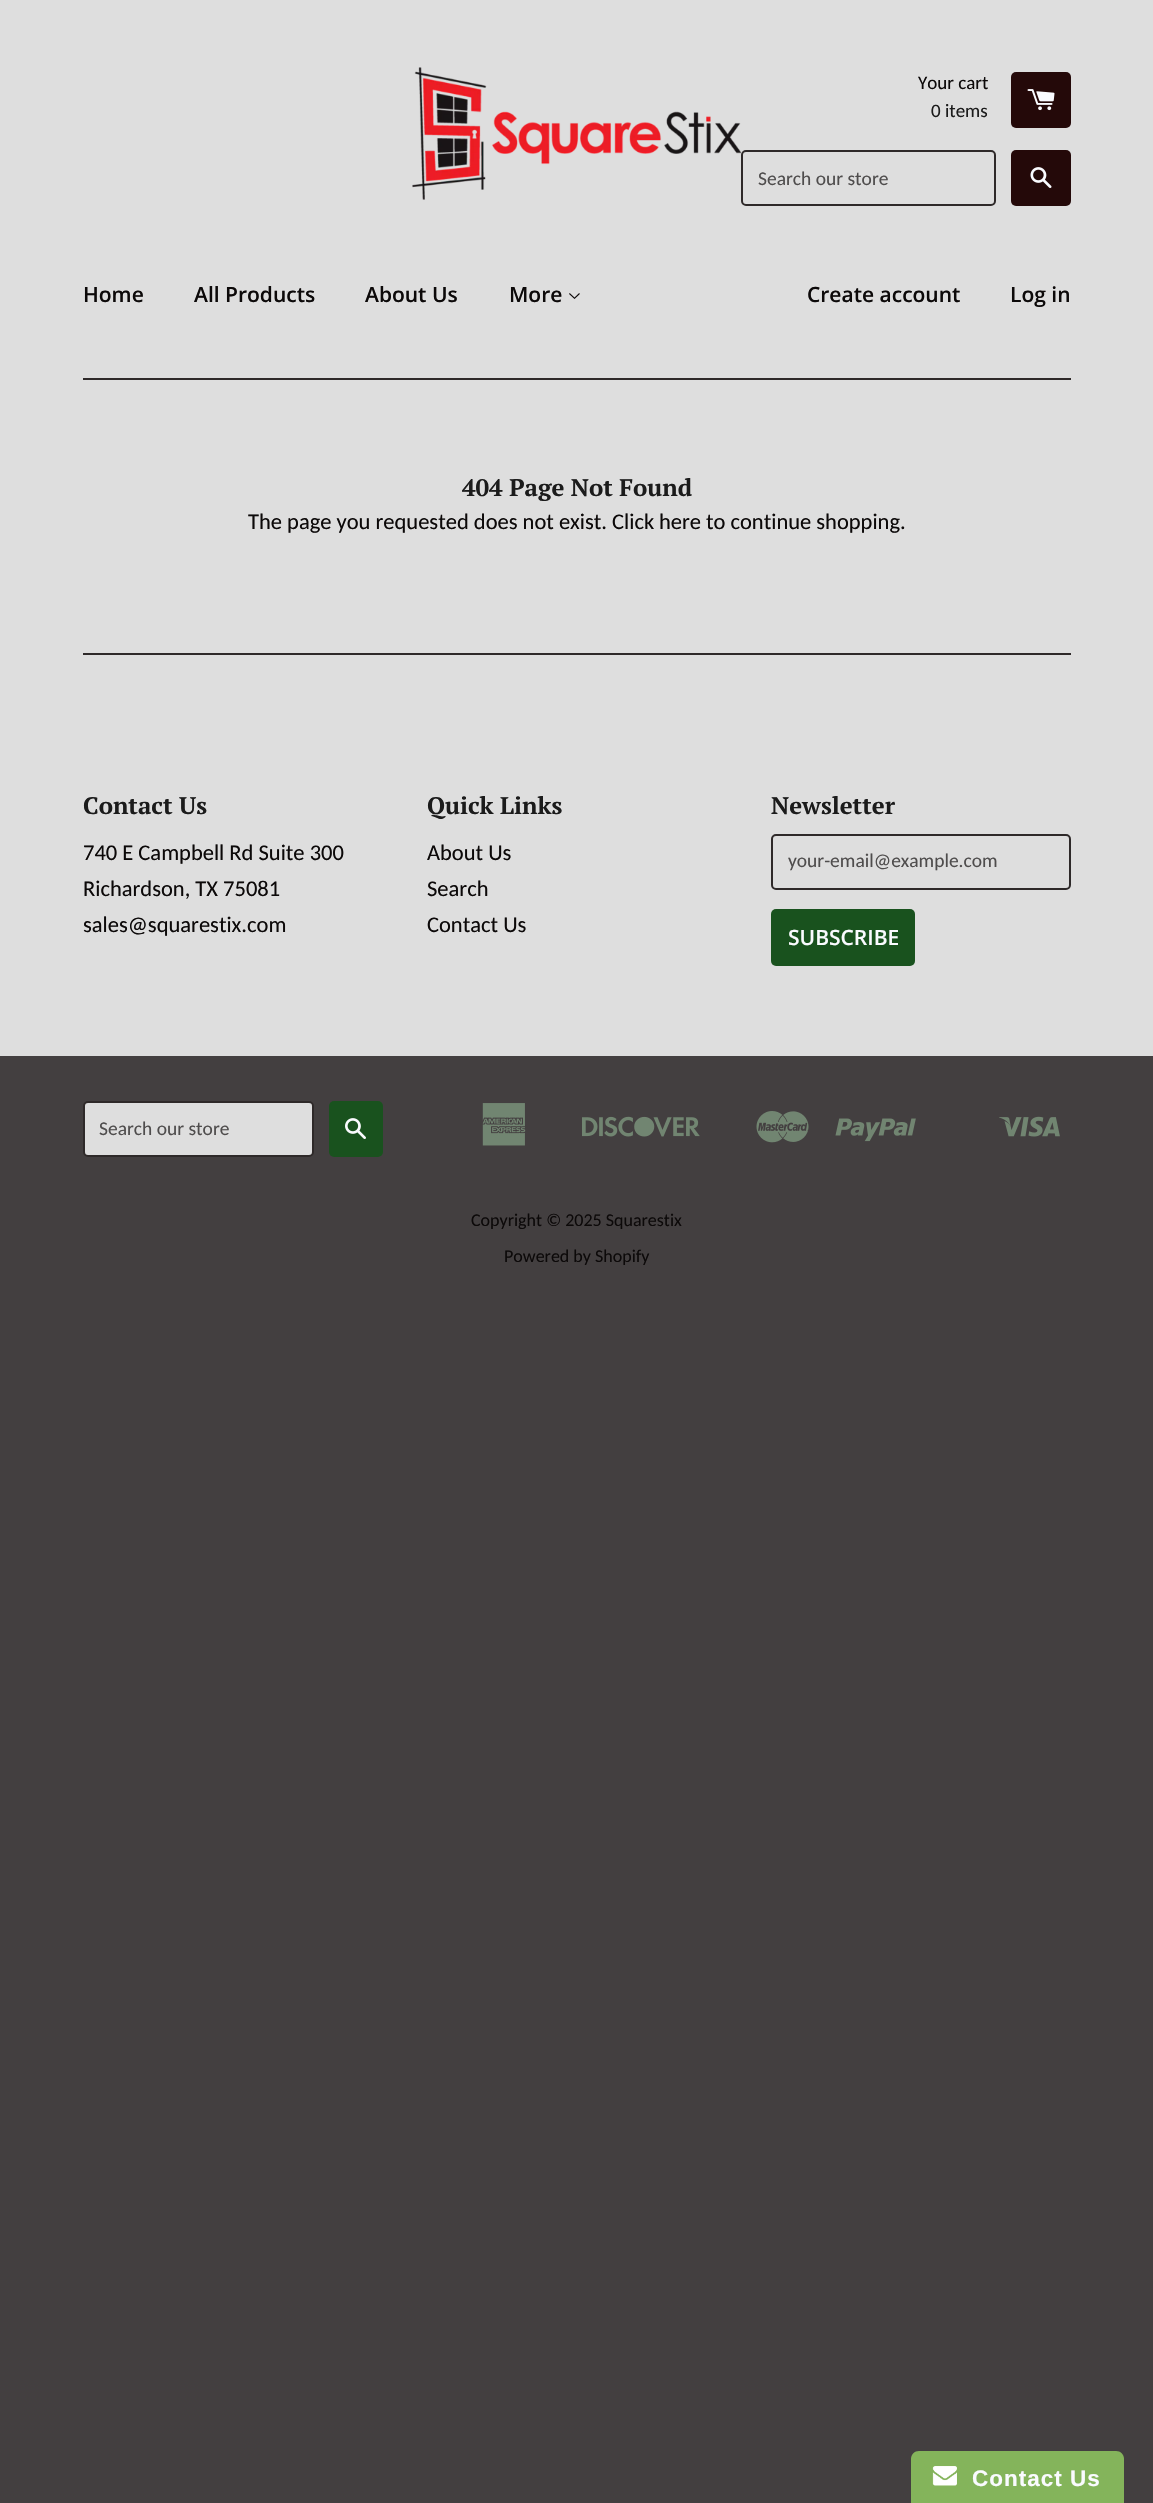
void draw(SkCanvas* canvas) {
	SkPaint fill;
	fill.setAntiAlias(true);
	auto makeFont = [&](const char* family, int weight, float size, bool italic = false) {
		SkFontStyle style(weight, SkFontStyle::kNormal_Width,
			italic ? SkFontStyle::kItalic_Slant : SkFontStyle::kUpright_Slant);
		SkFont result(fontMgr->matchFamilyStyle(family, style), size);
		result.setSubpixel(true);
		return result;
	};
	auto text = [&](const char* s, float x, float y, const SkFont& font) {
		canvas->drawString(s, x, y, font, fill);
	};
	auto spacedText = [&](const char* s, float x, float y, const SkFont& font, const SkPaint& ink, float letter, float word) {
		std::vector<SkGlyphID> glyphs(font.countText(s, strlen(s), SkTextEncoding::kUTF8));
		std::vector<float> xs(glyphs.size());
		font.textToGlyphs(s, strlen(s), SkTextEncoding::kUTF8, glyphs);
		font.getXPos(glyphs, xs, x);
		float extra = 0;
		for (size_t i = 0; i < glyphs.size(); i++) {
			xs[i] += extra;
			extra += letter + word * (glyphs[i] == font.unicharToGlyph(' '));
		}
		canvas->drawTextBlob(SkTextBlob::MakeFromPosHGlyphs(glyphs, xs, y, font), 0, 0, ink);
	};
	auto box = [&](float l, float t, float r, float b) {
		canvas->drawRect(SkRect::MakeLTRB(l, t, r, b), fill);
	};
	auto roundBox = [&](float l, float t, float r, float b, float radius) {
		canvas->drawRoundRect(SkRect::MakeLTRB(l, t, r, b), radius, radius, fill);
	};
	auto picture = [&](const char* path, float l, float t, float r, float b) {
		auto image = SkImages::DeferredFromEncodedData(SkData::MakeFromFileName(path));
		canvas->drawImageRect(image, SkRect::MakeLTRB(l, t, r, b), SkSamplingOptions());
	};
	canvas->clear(0xFF433F40);
	fill.setColor(0xFFDEDEDE);
	box(0, 0, 1153, 1056);
	picture("image0.png", 412, 67, 741, 200);
	fill.setColor(0xFF240909);
	roundBox(1011, 72, 1071, 128, 5);
	picture("image1.png", 1027, 89, 1055, 111);
	fill.setStyle(SkPaint::kStroke_Style);
	fill.setStrokeWidth(2);
	fill.setColor(0xFF2E2929);
	canvas->drawRoundRect(SkRect::MakeLTRB(742, 151, 995, 205), 4, 4, fill);
	fill.setStyle(SkPaint::kFill_Style);
	fill.setColor(0xFF240909);
	roundBox(1011, 150, 1071, 206, 5);
	picture("image2.png", 1030, 167, 1052, 188);
	picture("image3.png", 569, 293, 580, 299);
	fill.setColor(0xFF2E2929);
	box(83, 378, 1071, 380);
	box(83, 653, 1071, 655);
	fill.setStyle(SkPaint::kStroke_Style);
	canvas->drawRoundRect(SkRect::MakeLTRB(772, 835, 1070, 889), 4, 4, fill);
	fill.setStyle(SkPaint::kFill_Style);
	fill.setColor(0xFF19521E);
	roundBox(771, 909, 915, 966, 5);
	fill.setColor(0xFFDEDEDE);
	canvas->drawRoundRect(SkRect::MakeLTRB(84, 1102, 313, 1156), 4, 4, fill);
	fill.setStyle(SkPaint::kStroke_Style);
	fill.setColor(0xFF2E2929);
	canvas->drawRoundRect(SkRect::MakeLTRB(84, 1102, 313, 1156), 4, 4, fill);
	fill.setStyle(SkPaint::kFill_Style);
	fill.setColor(0xFF19521E);
	roundBox(329, 1101, 383, 1157, 5);
	picture("image4.png", 345, 1118, 366, 1139);
	picture("image5.png", 482, 1103, 526, 1146);
	picture("image6.png", 582, 1116, 700, 1137);
	picture("image7.png", 756, 1111, 809, 1143);
	picture("image8.png", 835, 1118, 916, 1142);
	picture("image9.png", 999, 1116, 1060, 1137);
	fill.setColor(0xFF84B45B);
	canvas->drawPath(SkPathBuilder().moveTo(919, 2451).lineTo(1116, 2451).cubicTo(1120.5f, 2451, 1124, 2454.5f, 1124, 2459).lineTo(1124, 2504).lineTo(911, 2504).lineTo(911, 2459).cubicTo(911, 2454.5f, 914.5f, 2451, 919, 2451).close().detach(), fill);
	picture("image10.png", 932, 2466, 957, 2486);
	auto font1 = makeFont("Carlito", 400, 19);
	fill.setColor(0xFF0C0909);
	text("Your cart", 918, 89, font1);
	fill.setColor(0xFF1B1B1B);
	text("0 items", 931, 117, font1);
	auto font2 = makeFont("Carlito", 400, 19.5f);
	fill.setColor(0xFF4F4D4D);
	text("Search our store", 758, 185, font2);
	auto font3 = makeFont("Open Sans", 600, 21);
	fill.setColor(0xFF0C0909);
	text("Home", 83, 302, font3);
	text("All Products", 194, 302, font3);
	text("About Us", 365, 302, font3);
	text("More", 509, 302, font3);
	text("Create account", 807, 302, font3);
	text("Log in", 1010, 302, font3);
	auto font4 = makeFont("PT Serif", 700, 24);
	fill.setColor(0xFF1B1B1B);
	text("404 Page Not Found", 462, 496, font4);
	auto font5 = makeFont("Carlito", 400, 22.5f);
	fill.setColor(0xFF0C0909);
	text("The page you requested does not exist. Click", 248, 529, font5);
	text("here", 659, 529, font5);
	text("to continue shopping.", 706, 529, font5);
	fill.setColor(0xFF1B1B1B);
	text("Contact Us", 83, 814, font4);
	fill.setColor(0xFF0C0909);
	text("740 E Campbell Rd Suite 300", 83, 860, font5);
	text("Richardson, TX 75081", 83, 896, font5);
	text("sales@squarestix.com", 83, 932, font5);
	fill.setColor(0xFF1B1B1B);
	text("Quick Links", 427, 814, font4);
	fill.setColor(0xFF0C0909);
	text("About Us", 427, 860, font5);
	text("Search", 427, 896, font5);
	text("Contact Us", 427, 932, font5);
	fill.setColor(0xFF1B1B1B);
	text("Newsletter", 771, 814, font4);
	fill.setColor(0xFF4F4D4D);
	text("your-email@example.com", 788, 867, font2);
	fill.setColor(0xFFFAFBFF);
	text("SUBSCRIBE", 788, 945, font3);
	fill.setColor(0xFF4F4D4D);
	text("Search our store", 99, 1135, font2);
	auto font6 = makeFont("Carlito", 400, 18);
	fill.setColor(0xFF0C0909);
	text("Copyright © 2025 Squarestix", 471, 1226, font6);
	text("Powered by Shopify", 504, 1262, font6);
	auto font7 = makeFont("Liberation Sans", 700, 22.5f);
	fill.setColor(0xFFFAFBFF);
	spacedText("Contact Us", 972, 2486, font7, fill, 1, 0);
}
